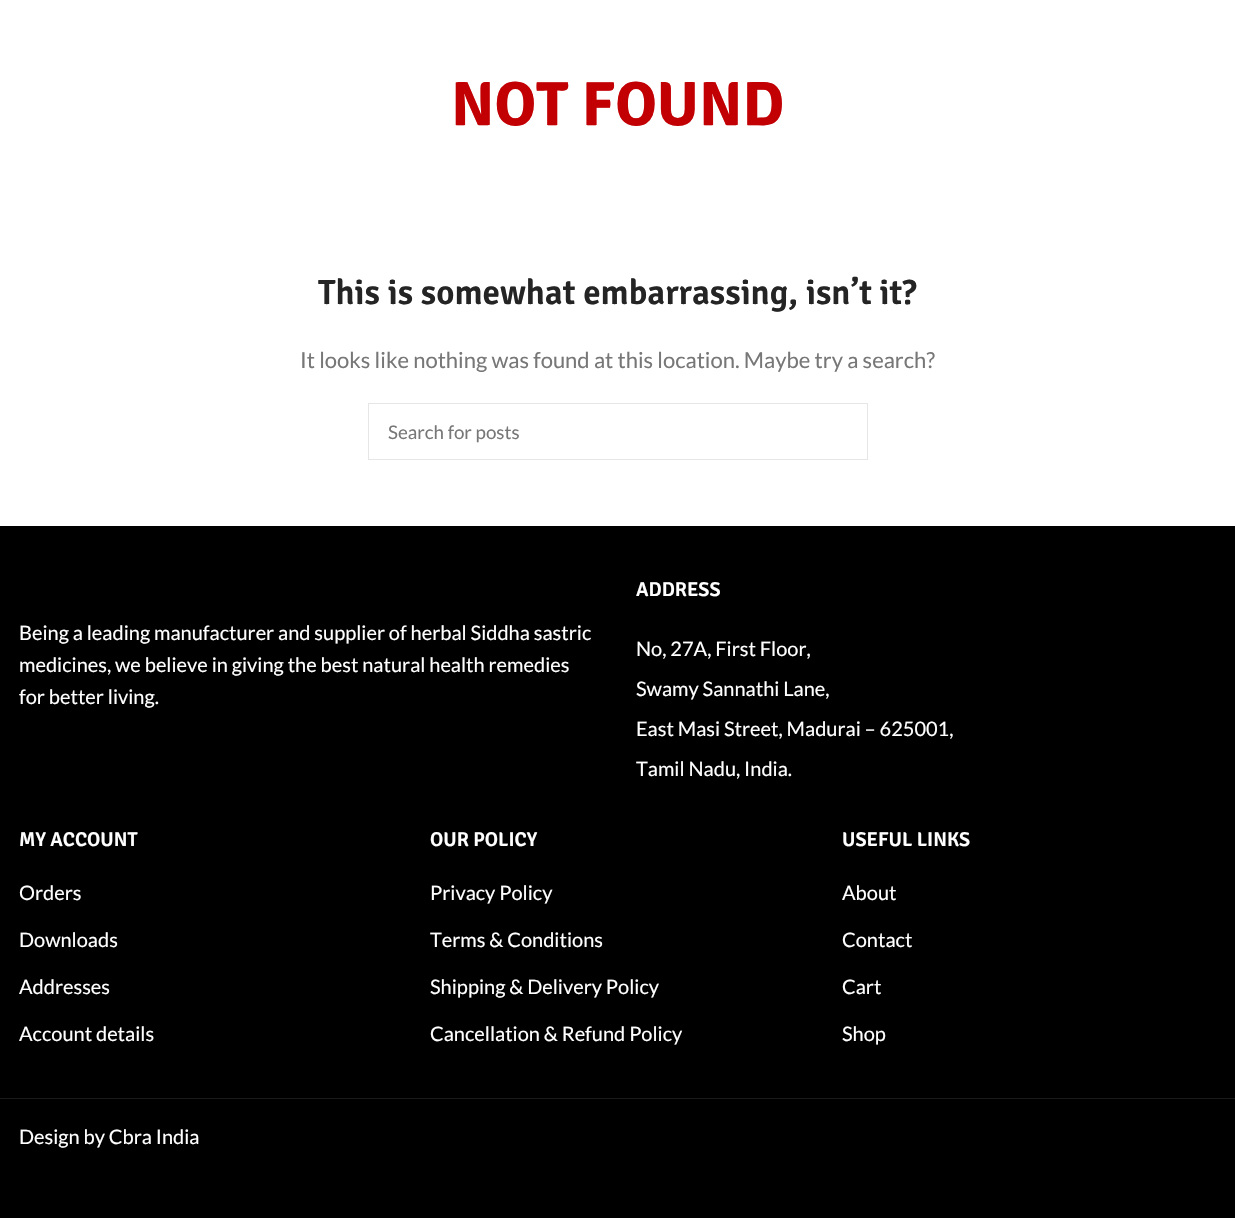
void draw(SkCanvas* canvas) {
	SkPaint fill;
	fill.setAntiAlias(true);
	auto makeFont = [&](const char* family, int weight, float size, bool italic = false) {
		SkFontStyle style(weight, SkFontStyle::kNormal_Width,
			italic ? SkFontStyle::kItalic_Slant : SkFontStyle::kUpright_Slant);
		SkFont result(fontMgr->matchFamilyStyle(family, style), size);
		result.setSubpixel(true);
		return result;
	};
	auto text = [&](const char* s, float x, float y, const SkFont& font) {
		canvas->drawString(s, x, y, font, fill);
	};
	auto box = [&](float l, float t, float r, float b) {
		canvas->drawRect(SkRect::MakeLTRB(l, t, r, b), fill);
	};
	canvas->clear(0xFFFFFFFF);
	fill.setStyle(SkPaint::kStroke_Style);
	fill.setStrokeWidth(1);
	fill.setColor(0xFFE6E6E6);
	canvas->drawRect(SkRect::MakeLTRB(368.5f, 403.5f, 867.5f, 459.5f), fill);
	fill.setStyle(SkPaint::kFill_Style);
	fill.setColor(0xFF000000);
	box(0, 526, 1235, 1218);
	fill.setColor(0xFF1A1A1A);
	box(0, 1098, 1235, 1099);
	auto font1 = makeFont("Signika", 700, 62.5f);
	fill.setColor(0xFFC20003);
	text("NOT FOUND", 451, 125, font1);
	auto font2 = makeFont("Signika", 600, 35);
	fill.setColor(0xFF242424);
	text("This is somewhat embarrassing, isn’t it?", 318, 304, font2);
	auto font3 = makeFont("Lato", 400, 22);
	fill.setColor(0xFF777777);
	text("It looks like nothing was found at this location. Maybe try a search?", 300, 368, font3);
	auto font4 = makeFont("Lato", 400, 18.75f);
	text("Search for posts", 388, 439, font4);
	auto font5 = makeFont("Lato", 400, 20);
	fill.setColor(0xFFFFFFFF);
	text("Being a leading manufacturer and supplier of herbal Siddha sastric", 19, 640, font5);
	text("medicines, we believe in giving the best natural health remedies", 19, 672, font5);
	text("for better living.", 19, 704, font5);
	auto font6 = makeFont("Signika", 600, 20);
	text("ADDRESS", 636, 596, font6);
	text("No, 27A, First Floor,", 636, 656, font5);
	text("Swamy Sannathi Lane,", 636, 696, font5);
	text("East Masi Street, Madurai – 625001,", 636, 736, font5);
	text("Tamil Nadu, India.", 636, 776, font5);
	text("MY ACCOUNT", 19, 846, font6);
	text("Orders", 19, 900, font5);
	text("Downloads", 19, 947, font5);
	text("Addresses", 19, 994, font5);
	text("Account details", 19, 1041, font5);
	text("OUR POLICY", 430, 846, font6);
	text("Privacy Policy", 430, 900, font5);
	text("Terms & Conditions", 430, 947, font5);
	text("Shipping & Delivery Policy", 430, 994, font5);
	text("Cancellation & Refund Policy", 430, 1041, font5);
	text("USEFUL LINKS", 842, 846, font6);
	text("About", 842, 900, font5);
	text("Contact", 842, 947, font5);
	text("Cart", 842, 994, font5);
	text("Shop", 842, 1041, font5);
	text("Design by Cbra India", 19, 1144, font5);
}
